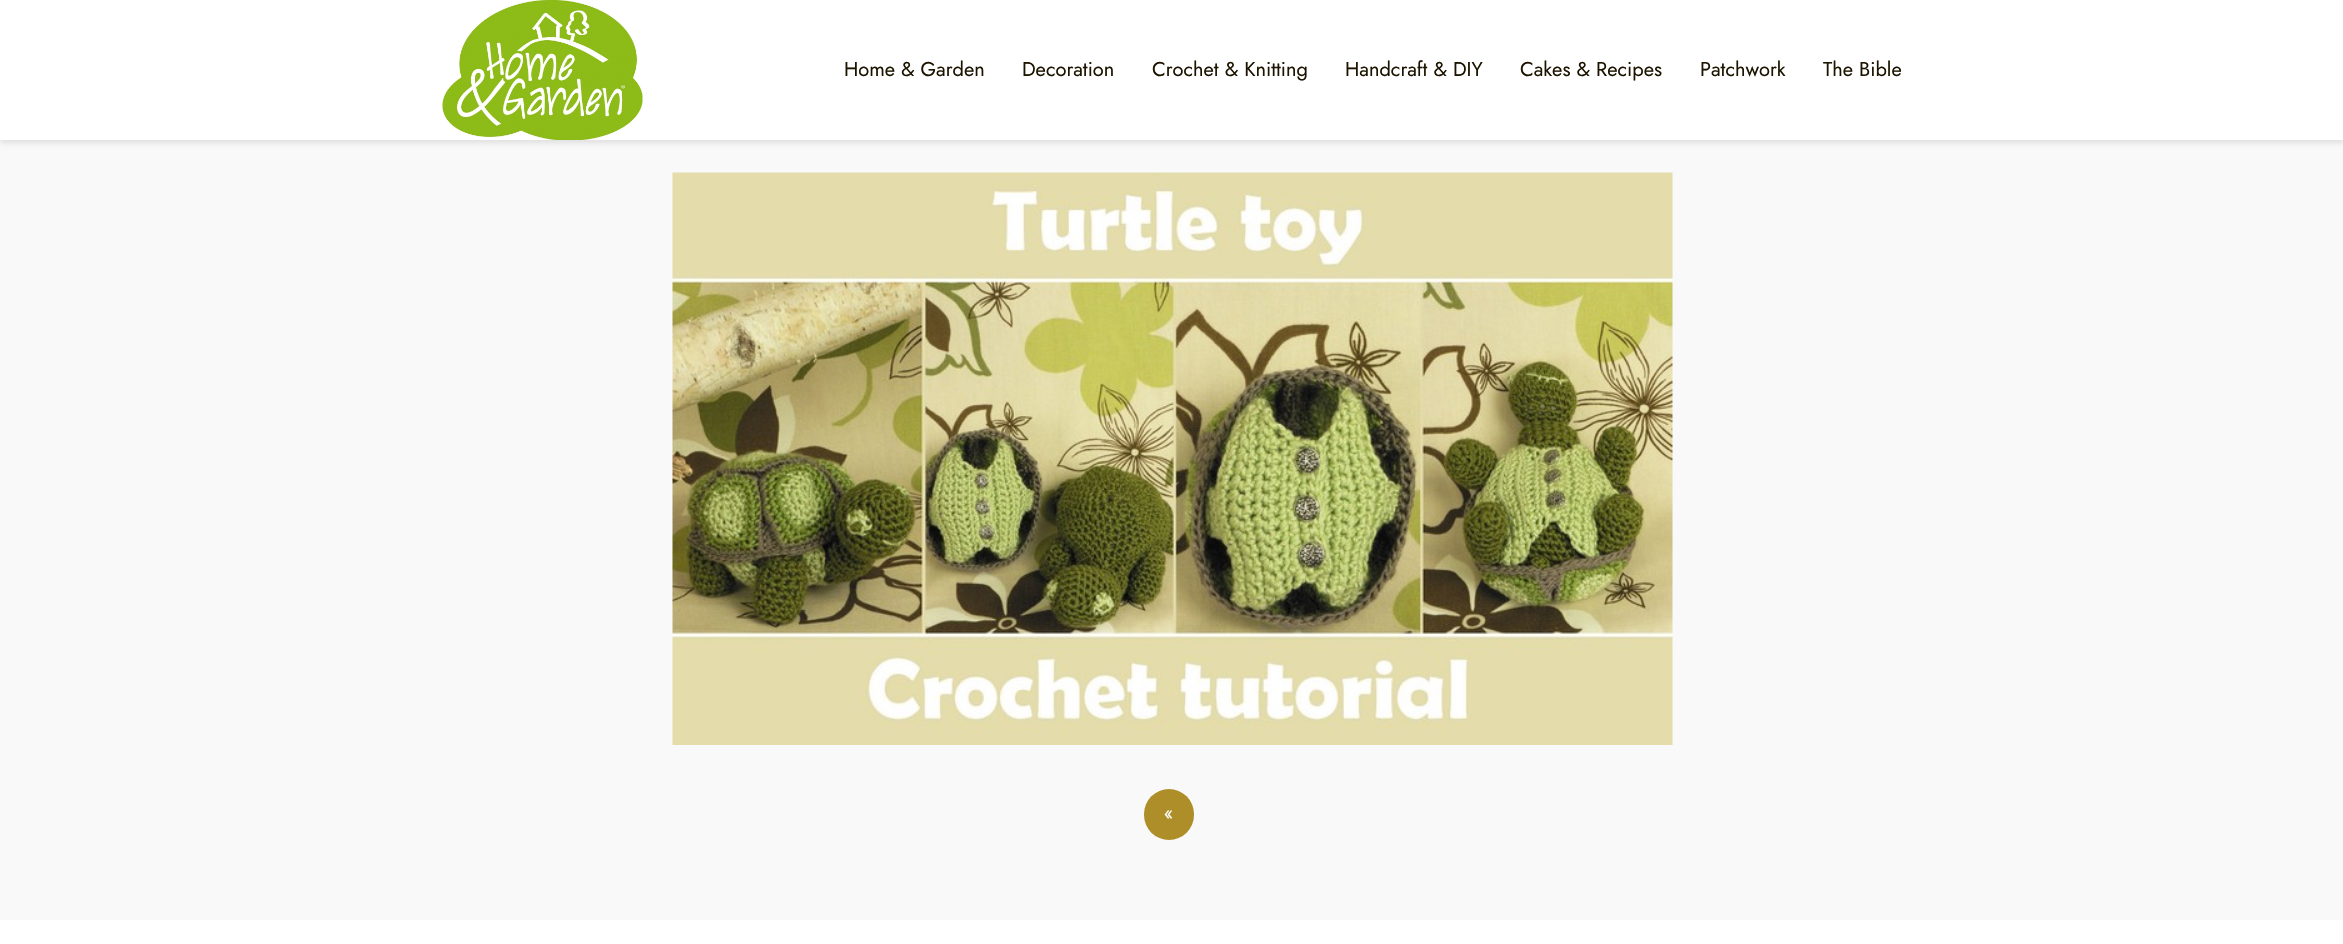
void draw(SkCanvas* canvas) {
	SkPaint fill;
	fill.setAntiAlias(true);
	auto makeFont = [&](const char* family, int weight, float size, bool italic = false) {
		SkFontStyle style(weight, SkFontStyle::kNormal_Width,
			italic ? SkFontStyle::kItalic_Slant : SkFontStyle::kUpright_Slant);
		SkFont result(fontMgr->matchFamilyStyle(family, style), size);
		result.setSubpixel(true);
		return result;
	};
	auto text = [&](const char* s, float x, float y, const SkFont& font) {
		canvas->drawString(s, x, y, font, fill);
	};
	auto box = [&](float l, float t, float r, float b) {
		canvas->drawRect(SkRect::MakeLTRB(l, t, r, b), fill);
	};
	auto roundBox = [&](float l, float t, float r, float b, float radius) {
		canvas->drawRoundRect(SkRect::MakeLTRB(l, t, r, b), radius, radius, fill);
	};
	auto picture = [&](const char* path, float l, float t, float r, float b) {
		auto image = SkImages::DeferredFromEncodedData(SkData::MakeFromFileName(path));
		canvas->drawImageRect(image, SkRect::MakeLTRB(l, t, r, b), SkSamplingOptions());
	};
	canvas->clear(0xFFF9F9F9);
	fill.setColor(0x1A000000);
	fill.setMaskFilter(SkMaskFilter::MakeBlur(kNormal_SkBlurStyle, 2.5f));
	canvas->drawRect(SkRect::MakeLTRB(0, 3, 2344, 143), fill);
	fill.setMaskFilter(nullptr);
	fill.setColor(0xFFFFFFFF);
	box(0, 0, 2343, 140);
	picture("image0.png", 442, 0, 643, 140);
	picture("image1.png", 672, 172, 1673, 745);
	fill.setColor(0xFFAD8E29);
	roundBox(1144, 789, 1194, 840, 25);
	fill.setColor(0xFFFFFFFF);
	box(0, 920, 2343, 944);
	auto font1 = makeFont("Jost", 400, 20);
	fill.setColor(0xFF1C1400);
	text("Home & Garden", 844, 76, font1);
	text("Decoration", 1022, 76, font1);
	text("Crochet & Knitting", 1152, 76, font1);
	text("Handcraft & DIY", 1345, 76, font1);
	text("Cakes & Recipes", 1520, 76, font1);
	text("Patchwork", 1700, 76, font1);
	text("The Bible", 1823, 76, font1);
	auto font2 = makeFont("Jost", 400, 18);
	fill.setColor(0xFFFFFFFF);
	text("«", 1164, 819, font2);
}
